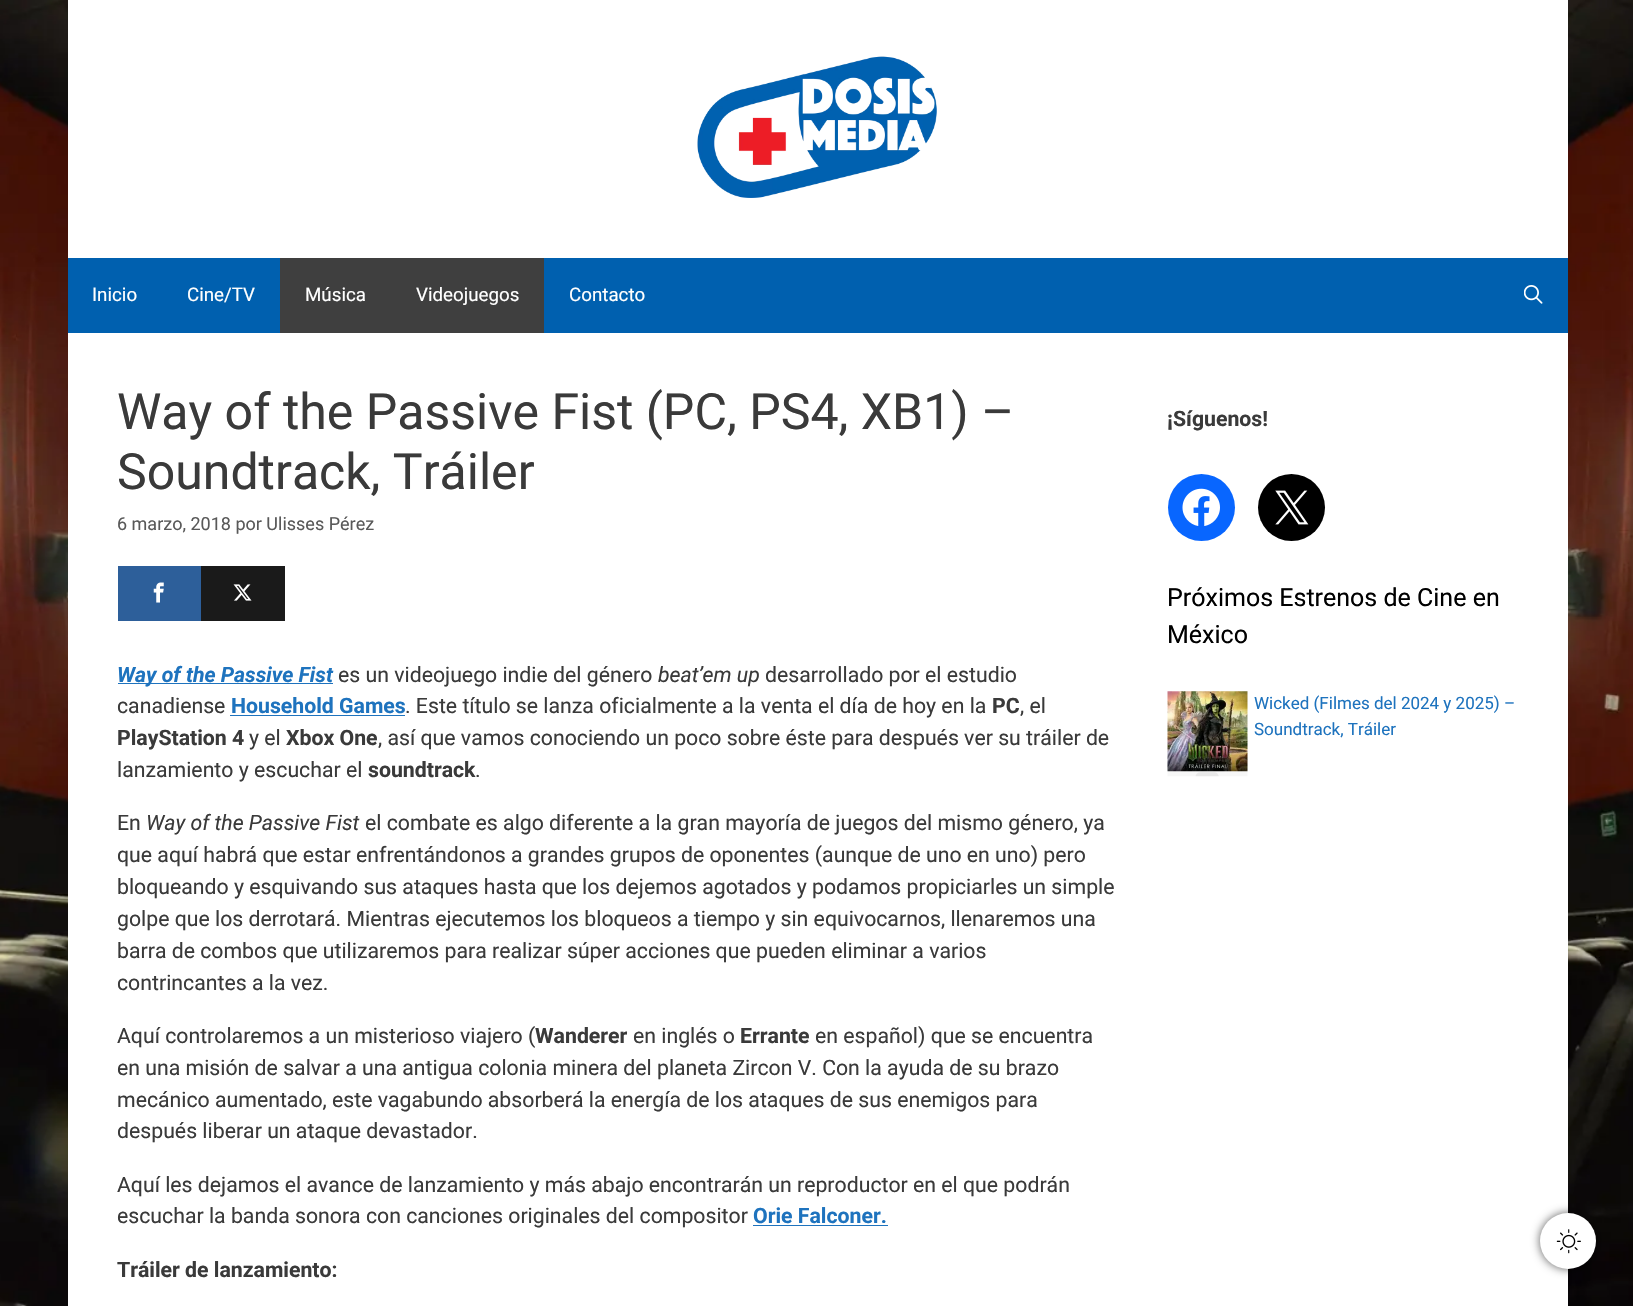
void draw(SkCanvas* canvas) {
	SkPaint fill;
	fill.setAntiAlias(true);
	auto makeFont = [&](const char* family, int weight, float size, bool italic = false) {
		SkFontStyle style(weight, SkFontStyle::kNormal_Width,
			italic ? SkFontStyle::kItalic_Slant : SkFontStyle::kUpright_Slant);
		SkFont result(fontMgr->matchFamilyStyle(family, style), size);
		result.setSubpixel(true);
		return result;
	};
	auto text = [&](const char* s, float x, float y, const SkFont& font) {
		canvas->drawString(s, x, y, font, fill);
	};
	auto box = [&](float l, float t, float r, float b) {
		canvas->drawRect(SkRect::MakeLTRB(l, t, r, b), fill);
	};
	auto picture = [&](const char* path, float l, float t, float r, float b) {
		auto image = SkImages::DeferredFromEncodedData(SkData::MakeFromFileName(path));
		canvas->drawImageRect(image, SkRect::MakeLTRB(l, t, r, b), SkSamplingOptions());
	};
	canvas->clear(0xFFFFFFFF);
	picture("image0.png", 0, 0, 1633, 1306);
	fill.setColor(0xFFFFFFFF);
	box(68, 0, 1568, 258);
	picture("image1.png", 697, 56, 937, 198);
	fill.setColor(0xFF0060AF);
	box(68, 258, 1568, 333);
	fill.setColor(0xFF3F3F3F);
	box(280, 258, 544, 333);
	picture("image2.png", 1524, 285, 1543, 304);
	fill.setColor(0xFFFFFFFF);
	box(68, 333, 1568, 1306);
	fill.setColor(0xFF2D5F9A);
	box(118, 566, 201, 621);
	picture("image3.png", 153, 582, 164, 603);
	fill.setColor(0xFF1A1A1A);
	box(201, 566, 285, 621);
	picture("image4.png", 233, 584, 252, 601);
	fill.setColor(0xFF1E73BE);
	box(118, 683, 333, 684);
	box(230, 715, 405, 716);
	box(753, 1225, 888, 1226);
	fill.setColor(0xFF0866FF);
	canvas->drawCircle(1201.5f, 507.5f, 33.5f, fill);
	picture("image5.png", 1182, 488, 1220, 526);
	fill.setColor(0xFF000000);
	canvas->drawCircle(1291.5f, 507.5f, 33.5f, fill);
	picture("image6.png", 1275, 490, 1309, 525);
	picture("image8.png", 1167, 751, 1248, 777);
	picture("image7.png", 1167, 691, 1248, 772);
	fill.setColor(0xA1000000);
	fill.setMaskFilter(SkMaskFilter::MakeBlur(kNormal_SkBlurStyle, 5));
	canvas->drawRoundRect(SkRect::MakeLTRB(1540, 1213, 1596, 1269), 28, 28, fill);
	fill.setMaskFilter(nullptr);
	fill.setColor(0xFFFFFFFF);
	canvas->drawCircle(1568, 1241, 28, fill);
	picture("image9.png", 1556, 1229, 1581, 1254);
	auto font1 = makeFont("Roboto", 400, 18.75f);
	text("Inicio", 92, 301, font1);
	text("Cine/TV", 187, 301, font1);
	text("Música", 305, 301, font1);
	text("Videojuegos", 416, 301, font1);
	text("Contacto", 569, 301, font1);
	auto font2 = makeFont("Roboto", 400, 50);
	fill.setColor(0xFF3A3A3A);
	text("Way of the Passive Fist (PC, PS4, XB1) –", 117, 429, font2);
	text("Soundtrack, Tráiler", 117, 489, font2);
	auto font3 = makeFont("Roboto", 400, 18);
	fill.setColor(0xFF595959);
	text("6 marzo, 2018 por Ulisses Pérez", 117, 530, font3);
	auto font4 = makeFont("Roboto", 700, 21.25f, true);
	fill.setColor(0xFF1E73BE);
	text("Way of the Passive Fist", 117, 682, font4);
	auto font5 = makeFont("Roboto", 400, 21.25f);
	fill.setColor(0xFF3A3A3A);
	text("es un videojuego indie del género", 338, 682, font5);
	auto font6 = makeFont("Roboto", 400, 21.25f, true);
	text("beat’em up", 658, 682, font6);
	text("desarrollado por el estudio", 765, 682, font5);
	text("canadiense", 117, 713, font5);
	auto font7 = makeFont("Roboto", 700, 21.25f);
	fill.setColor(0xFF1E73BE);
	text("Household Games", 231, 713, font7);
	fill.setColor(0xFF3A3A3A);
	text(". Este título se lanza oficialmente a la venta el día de hoy en la", 405, 713, font5);
	text("PC", 992, 713, font7);
	text(", el", 1020, 713, font5);
	text("PlayStation 4", 117, 745, font7);
	text("y el", 249, 745, font5);
	text("Xbox One", 286, 745, font7);
	text(", así que vamos conociendo un poco sobre éste para después ver su tráiler de", 378, 745, font5);
	text("lanzamiento y escuchar el", 117, 777, font5);
	text("soundtrack", 368, 777, font7);
	text(".", 475, 777, font5);
	text("En", 117, 830, font5);
	text("Way of the Passive Fist", 146, 830, font6);
	text("el combate es algo diferente a la gran mayoría de juegos del mismo género, ya", 365, 830, font5);
	text("que aquí habrá que estar enfrentándonos a grandes grupos de oponentes (aunque de uno en uno) pero", 117, 862, font5);
	text("bloqueando y esquivando sus ataques hasta que los dejemos agotados y podamos propiciarles un simple", 117, 894, font5);
	text("golpe que los derrotará. Mientras ejecutemos los bloqueos a tiempo y sin equivocarnos, llenaremos una", 117, 926, font5);
	text("barra de combos que utilizaremos para realizar súper acciones que pueden eliminar a varios", 117, 958, font5);
	text("contrincantes a la vez.", 117, 990, font5);
	text("Aquí controlaremos a un misterioso viajero (", 117, 1043, font5);
	text("Wanderer", 535, 1043, font7);
	text("en inglés o", 633, 1043, font5);
	text("Errante", 740, 1043, font7);
	text("en español) que se encuentra", 815, 1043, font5);
	text("en una misión de salvar a una antigua colonia minera del planeta Zircon V. Con la ayuda de su brazo", 117, 1075, font5);
	text("mecánico aumentado, este vagabundo absorberá la energía de los ataques de sus enemigos para", 117, 1107, font5);
	text("después liberar un ataque devastador.", 117, 1138, font5);
	text("Aquí les dejamos el avance de lanzamiento y más abajo encontrarán un reproductor en el que podrán", 117, 1192, font5);
	text("escuchar la banda sonora con canciones originales del compositor", 117, 1223, font5);
	fill.setColor(0xFF1E73BE);
	text("Orie Falconer.", 753, 1223, font7);
	fill.setColor(0xFF3A3A3A);
	text("Tráiler de lanzamiento:", 117, 1277, font7);
	text("¡Síguenos!", 1167, 426, font7);
	auto font8 = makeFont("Roboto", 400, 25);
	fill.setColor(0xFF000000);
	text("Próximos Estrenos de Cine en", 1167, 606, font8);
	text("México", 1167, 643, font8);
	auto font9 = makeFont("Roboto", 400, 17);
	fill.setColor(0xFF1E73BE);
	text("Wicked (Filmes del 2024 y 2025) –", 1254, 709, font9);
	text("Soundtrack, Tráiler", 1254, 735, font9);
}
